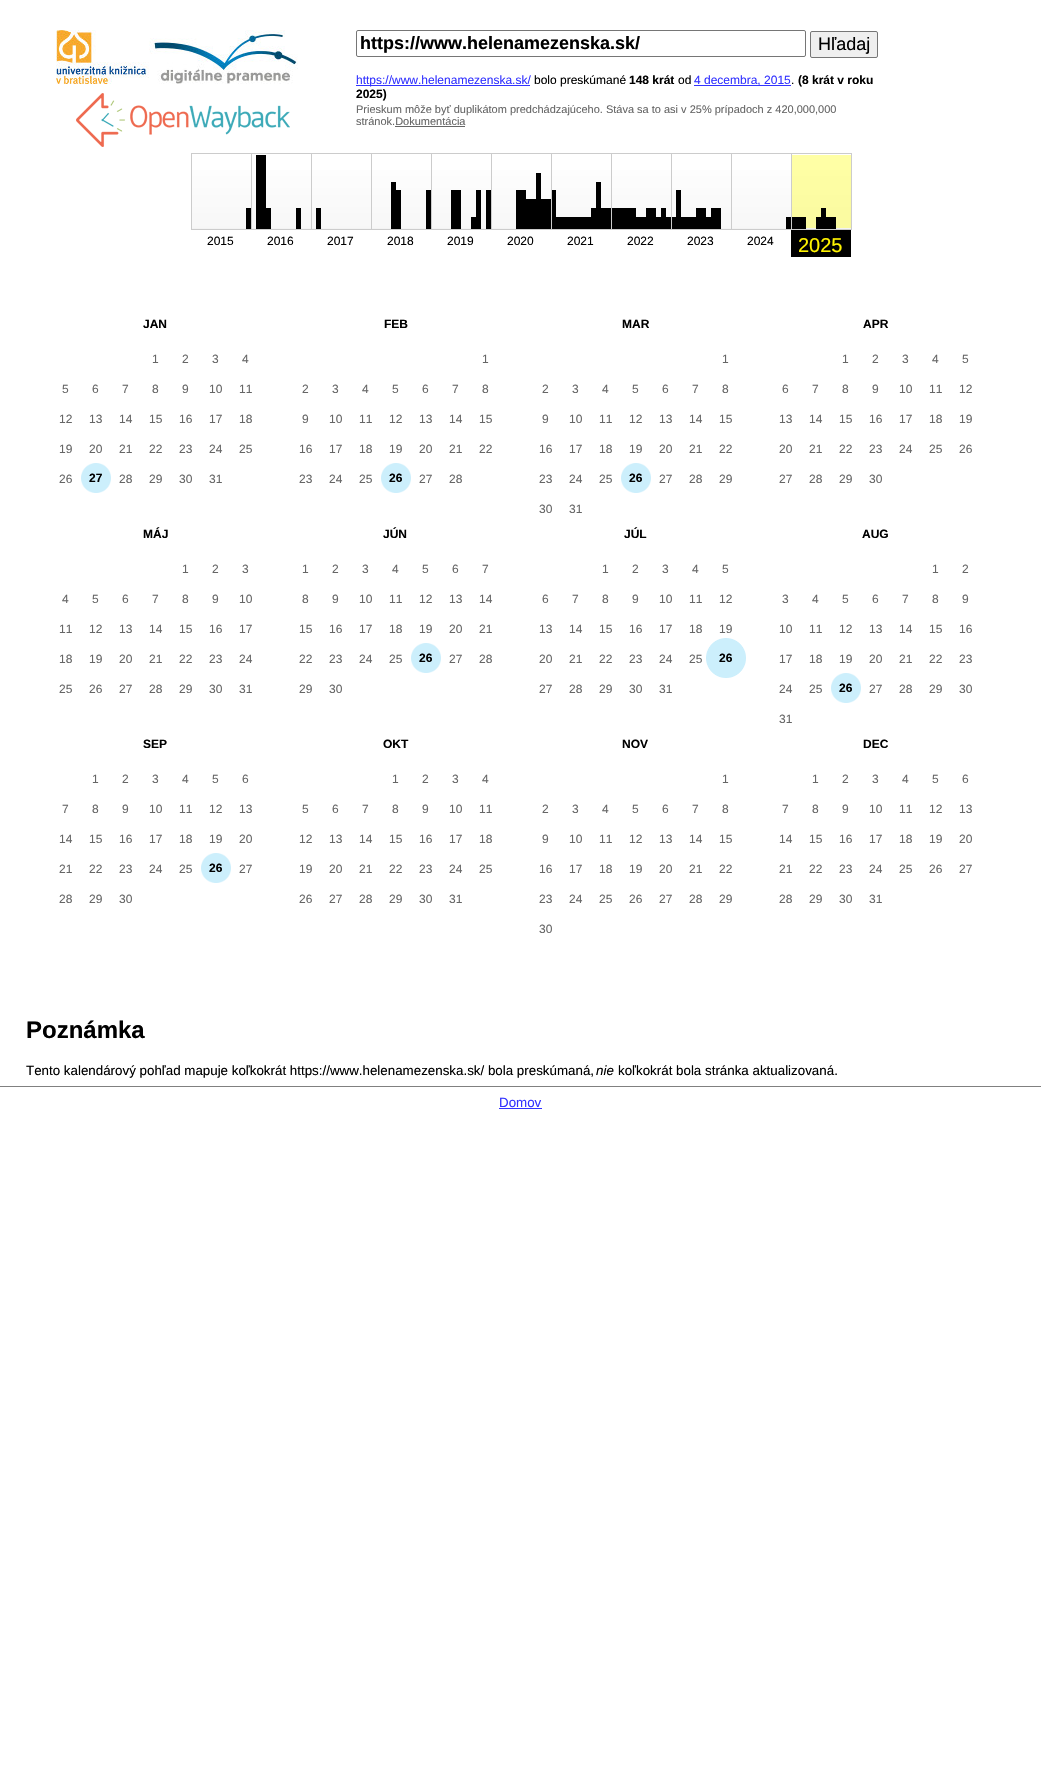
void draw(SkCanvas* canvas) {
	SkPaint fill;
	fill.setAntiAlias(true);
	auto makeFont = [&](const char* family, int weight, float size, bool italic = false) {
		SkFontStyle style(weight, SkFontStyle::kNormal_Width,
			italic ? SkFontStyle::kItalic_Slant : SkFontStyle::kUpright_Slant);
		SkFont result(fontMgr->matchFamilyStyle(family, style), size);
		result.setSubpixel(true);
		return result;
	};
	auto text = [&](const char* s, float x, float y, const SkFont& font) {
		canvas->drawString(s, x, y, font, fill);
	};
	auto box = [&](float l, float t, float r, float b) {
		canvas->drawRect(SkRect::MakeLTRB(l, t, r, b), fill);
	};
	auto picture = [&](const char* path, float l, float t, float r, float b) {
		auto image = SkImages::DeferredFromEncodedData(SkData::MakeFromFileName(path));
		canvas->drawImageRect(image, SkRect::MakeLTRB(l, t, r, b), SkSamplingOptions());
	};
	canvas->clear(0xFFFFFFFF);
	picture("image0.png", 56, 30, 298, 147);
	fill.setStyle(SkPaint::kStroke_Style);
	fill.setStrokeWidth(1);
	fill.setColor(0xFF767676);
	canvas->drawRoundRect(SkRect::MakeLTRB(356.5f, 30.5f, 805.5f, 56.5f), 1.5f, 1.5f, fill);
	fill.setStyle(SkPaint::kFill_Style);
	fill.setColor(0xFFEFEFEF);
	canvas->drawRoundRect(SkRect::MakeLTRB(810.5f, 31.5f, 877.5f, 57.5f), 1.5f, 1.5f, fill);
	fill.setStyle(SkPaint::kStroke_Style);
	fill.setColor(0xFF767676);
	canvas->drawRoundRect(SkRect::MakeLTRB(810.5f, 31.5f, 877.5f, 57.5f), 1.5f, 1.5f, fill);
	fill.setStyle(SkPaint::kFill_Style);
	fill.setColor(0xFF3333FF);
	box(356, 85, 530, 86);
	box(694, 85, 791, 86);
	fill.setColor(0xFF666666);
	box(395, 126, 465, 127);
	{
		const SkColor colors[] = {0xFFFFFFFF, 0xFFF3F3F3};
		const float stops[] = {0, 1};
		const SkPoint ends[] = {{191, 154}, {191, 229}};
		fill.setShader(SkGradientShader::MakeLinear(ends, colors, stops, 2, SkTileMode::kClamp));
		fill.setAlpha(255);
	}
	box(192, 170, 851, 229);
	fill.setShader(nullptr);
	fill.setColor(0xFFCCCCCC);
	box(191, 153, 852, 154);
	box(851, 153, 852, 230);
	box(191, 229, 852, 230);
	picture("image1.png", 191, 154, 851, 229);
	fill.setColor(0xFF000000);
	box(791, 230, 851, 257);
	picture("image2.png", 81, 463, 111, 493);
	picture("image2.png", 381, 463, 411, 493);
	picture("image2.png", 621, 463, 651, 493);
	picture("image2.png", 411, 643, 441, 673);
	picture("image3.png", 706, 638, 746, 678);
	picture("image2.png", 831, 673, 861, 703);
	picture("image4.png", 201, 853, 231, 883);
	fill.setColor(0xFF808080);
	box(0, 1086, 1041, 1087);
	fill.setColor(0xFF3333FF);
	box(499, 1108, 542, 1109);
	auto font1 = makeFont("Liberation Sans", 700, 18);
	fill.setColor(0xFF000000);
	text("https://www.helenamezenska.sk/", 360, 49, font1);
	auto font2 = makeFont("Liberation Sans", 400, 18);
	text("Hľadaj", 818, 50, font2);
	auto font3 = makeFont("Liberation Sans", 400, 12);
	fill.setColor(0xFF3333FF);
	text("https://www.helenamezenska.sk/", 356, 84, font3);
	fill.setColor(0xFF000000);
	text("bolo preskúmané", 534, 84, font3);
	auto font4 = makeFont("Liberation Sans", 700, 12);
	text("148 krát", 629, 84, font4);
	text("od", 678, 84, font3);
	fill.setColor(0xFF3333FF);
	text("4 decembra, 2015", 694, 84, font3);
	fill.setColor(0xFF000000);
	text(".", 791, 84, font3);
	text("(8 krát v roku", 798, 84, font4);
	text("2025)", 356, 98, font4);
	auto font5 = makeFont("Liberation Sans", 400, 11);
	fill.setColor(0xFF666666);
	text("Prieskum môže byť duplikátom predchádzajúceho. Stáva sa to asi v 25% prípadoch z 420,000,000", 356, 113, font5);
	text("stránok.Dokumentácia", 356, 125, font5);
	fill.setColor(0xFF000000);
	text("2015", 207, 245, font3);
	text("2016", 267, 245, font3);
	text("2017", 327, 245, font3);
	text("2018", 387, 245, font3);
	text("2019", 447, 245, font3);
	text("2020", 507, 245, font3);
	text("2021", 567, 245, font3);
	text("2022", 627, 245, font3);
	text("2023", 687, 245, font3);
	text("2024", 747, 245, font3);
	auto font6 = makeFont("Liberation Sans", 400, 20);
	fill.setColor(0xFFFFF300);
	text("2025", 798, 252, font6);
	fill.setColor(0xFF000000);
	text("JAN", 143, 328, font4);
	fill.setColor(0xFF666666);
	text("1", 152, 363, font3);
	text("2", 182, 363, font3);
	text("3", 212, 363, font3);
	text("4", 242, 363, font3);
	text("5", 62, 393, font3);
	text("6", 92, 393, font3);
	text("7", 122, 393, font3);
	text("8", 152, 393, font3);
	text("9", 182, 393, font3);
	text("10", 209, 393, font3);
	text("11", 239, 393, font3);
	text("12", 59, 423, font3);
	text("13", 89, 423, font3);
	text("14", 119, 423, font3);
	text("15", 149, 423, font3);
	text("16", 179, 423, font3);
	text("17", 209, 423, font3);
	text("18", 239, 423, font3);
	text("19", 59, 453, font3);
	text("20", 89, 453, font3);
	text("21", 119, 453, font3);
	text("22", 149, 453, font3);
	text("23", 179, 453, font3);
	text("24", 209, 453, font3);
	text("25", 239, 453, font3);
	text("26", 59, 483, font3);
	fill.setColor(0xFF000000);
	text("27", 89, 482, font4);
	fill.setColor(0xFF666666);
	text("28", 119, 483, font3);
	text("29", 149, 483, font3);
	text("30", 179, 483, font3);
	text("31", 209, 483, font3);
	fill.setColor(0xFF000000);
	text("FEB", 384, 328, font4);
	fill.setColor(0xFF666666);
	text("1", 482, 363, font3);
	text("2", 302, 393, font3);
	text("3", 332, 393, font3);
	text("4", 362, 393, font3);
	text("5", 392, 393, font3);
	text("6", 422, 393, font3);
	text("7", 452, 393, font3);
	text("8", 482, 393, font3);
	text("9", 302, 423, font3);
	text("10", 329, 423, font3);
	text("11", 359, 423, font3);
	text("12", 389, 423, font3);
	text("13", 419, 423, font3);
	text("14", 449, 423, font3);
	text("15", 479, 423, font3);
	text("16", 299, 453, font3);
	text("17", 329, 453, font3);
	text("18", 359, 453, font3);
	text("19", 389, 453, font3);
	text("20", 419, 453, font3);
	text("21", 449, 453, font3);
	text("22", 479, 453, font3);
	text("23", 299, 483, font3);
	text("24", 329, 483, font3);
	text("25", 359, 483, font3);
	fill.setColor(0xFF000000);
	text("26", 389, 482, font4);
	fill.setColor(0xFF666666);
	text("27", 419, 483, font3);
	text("28", 449, 483, font3);
	fill.setColor(0xFF000000);
	text("MAR", 622, 328, font4);
	fill.setColor(0xFF666666);
	text("1", 722, 363, font3);
	text("2", 542, 393, font3);
	text("3", 572, 393, font3);
	text("4", 602, 393, font3);
	text("5", 632, 393, font3);
	text("6", 662, 393, font3);
	text("7", 692, 393, font3);
	text("8", 722, 393, font3);
	text("9", 542, 423, font3);
	text("10", 569, 423, font3);
	text("11", 599, 423, font3);
	text("12", 629, 423, font3);
	text("13", 659, 423, font3);
	text("14", 689, 423, font3);
	text("15", 719, 423, font3);
	text("16", 539, 453, font3);
	text("17", 569, 453, font3);
	text("18", 599, 453, font3);
	text("19", 629, 453, font3);
	text("20", 659, 453, font3);
	text("21", 689, 453, font3);
	text("22", 719, 453, font3);
	text("23", 539, 483, font3);
	text("24", 569, 483, font3);
	text("25", 599, 483, font3);
	fill.setColor(0xFF000000);
	text("26", 629, 482, font4);
	fill.setColor(0xFF666666);
	text("27", 659, 483, font3);
	text("28", 689, 483, font3);
	text("29", 719, 483, font3);
	text("30", 539, 513, font3);
	text("31", 569, 513, font3);
	fill.setColor(0xFF000000);
	text("APR", 863, 328, font4);
	fill.setColor(0xFF666666);
	text("1", 842, 363, font3);
	text("2", 872, 363, font3);
	text("3", 902, 363, font3);
	text("4", 932, 363, font3);
	text("5", 962, 363, font3);
	text("6", 782, 393, font3);
	text("7", 812, 393, font3);
	text("8", 842, 393, font3);
	text("9", 872, 393, font3);
	text("10", 899, 393, font3);
	text("11", 929, 393, font3);
	text("12", 959, 393, font3);
	text("13", 779, 423, font3);
	text("14", 809, 423, font3);
	text("15", 839, 423, font3);
	text("16", 869, 423, font3);
	text("17", 899, 423, font3);
	text("18", 929, 423, font3);
	text("19", 959, 423, font3);
	text("20", 779, 453, font3);
	text("21", 809, 453, font3);
	text("22", 839, 453, font3);
	text("23", 869, 453, font3);
	text("24", 899, 453, font3);
	text("25", 929, 453, font3);
	text("26", 959, 453, font3);
	text("27", 779, 483, font3);
	text("28", 809, 483, font3);
	text("29", 839, 483, font3);
	text("30", 869, 483, font3);
	fill.setColor(0xFF000000);
	text("MÁJ", 143, 538, font4);
	fill.setColor(0xFF666666);
	text("1", 182, 573, font3);
	text("2", 212, 573, font3);
	text("3", 242, 573, font3);
	text("4", 62, 603, font3);
	text("5", 92, 603, font3);
	text("6", 122, 603, font3);
	text("7", 152, 603, font3);
	text("8", 182, 603, font3);
	text("9", 212, 603, font3);
	text("10", 239, 603, font3);
	text("11", 59, 633, font3);
	text("12", 89, 633, font3);
	text("13", 119, 633, font3);
	text("14", 149, 633, font3);
	text("15", 179, 633, font3);
	text("16", 209, 633, font3);
	text("17", 239, 633, font3);
	text("18", 59, 663, font3);
	text("19", 89, 663, font3);
	text("20", 119, 663, font3);
	text("21", 149, 663, font3);
	text("22", 179, 663, font3);
	text("23", 209, 663, font3);
	text("24", 239, 663, font3);
	text("25", 59, 693, font3);
	text("26", 89, 693, font3);
	text("27", 119, 693, font3);
	text("28", 149, 693, font3);
	text("29", 179, 693, font3);
	text("30", 209, 693, font3);
	text("31", 239, 693, font3);
	fill.setColor(0xFF000000);
	text("JÚN", 383, 538, font4);
	fill.setColor(0xFF666666);
	text("1", 302, 573, font3);
	text("2", 332, 573, font3);
	text("3", 362, 573, font3);
	text("4", 392, 573, font3);
	text("5", 422, 573, font3);
	text("6", 452, 573, font3);
	text("7", 482, 573, font3);
	text("8", 302, 603, font3);
	text("9", 332, 603, font3);
	text("10", 359, 603, font3);
	text("11", 389, 603, font3);
	text("12", 419, 603, font3);
	text("13", 449, 603, font3);
	text("14", 479, 603, font3);
	text("15", 299, 633, font3);
	text("16", 329, 633, font3);
	text("17", 359, 633, font3);
	text("18", 389, 633, font3);
	text("19", 419, 633, font3);
	text("20", 449, 633, font3);
	text("21", 479, 633, font3);
	text("22", 299, 663, font3);
	text("23", 329, 663, font3);
	text("24", 359, 663, font3);
	text("25", 389, 663, font3);
	fill.setColor(0xFF000000);
	text("26", 419, 662, font4);
	fill.setColor(0xFF666666);
	text("27", 449, 663, font3);
	text("28", 479, 663, font3);
	text("29", 299, 693, font3);
	text("30", 329, 693, font3);
	fill.setColor(0xFF000000);
	text("JÚL", 624, 538, font4);
	fill.setColor(0xFF666666);
	text("1", 602, 573, font3);
	text("2", 632, 573, font3);
	text("3", 662, 573, font3);
	text("4", 692, 573, font3);
	text("5", 722, 573, font3);
	text("6", 542, 603, font3);
	text("7", 572, 603, font3);
	text("8", 602, 603, font3);
	text("9", 632, 603, font3);
	text("10", 659, 603, font3);
	text("11", 689, 603, font3);
	text("12", 719, 603, font3);
	text("13", 539, 633, font3);
	text("14", 569, 633, font3);
	text("15", 599, 633, font3);
	text("16", 629, 633, font3);
	text("17", 659, 633, font3);
	text("18", 689, 633, font3);
	text("19", 719, 633, font3);
	text("20", 539, 663, font3);
	text("21", 569, 663, font3);
	text("22", 599, 663, font3);
	text("23", 629, 663, font3);
	text("24", 659, 663, font3);
	text("25", 689, 663, font3);
	fill.setColor(0xFF000000);
	text("26", 719, 662, font4);
	fill.setColor(0xFF666666);
	text("27", 539, 693, font3);
	text("28", 569, 693, font3);
	text("29", 599, 693, font3);
	text("30", 629, 693, font3);
	text("31", 659, 693, font3);
	fill.setColor(0xFF000000);
	text("AUG", 862, 538, font4);
	fill.setColor(0xFF666666);
	text("1", 932, 573, font3);
	text("2", 962, 573, font3);
	text("3", 782, 603, font3);
	text("4", 812, 603, font3);
	text("5", 842, 603, font3);
	text("6", 872, 603, font3);
	text("7", 902, 603, font3);
	text("8", 932, 603, font3);
	text("9", 962, 603, font3);
	text("10", 779, 633, font3);
	text("11", 809, 633, font3);
	text("12", 839, 633, font3);
	text("13", 869, 633, font3);
	text("14", 899, 633, font3);
	text("15", 929, 633, font3);
	text("16", 959, 633, font3);
	text("17", 779, 663, font3);
	text("18", 809, 663, font3);
	text("19", 839, 663, font3);
	text("20", 869, 663, font3);
	text("21", 899, 663, font3);
	text("22", 929, 663, font3);
	text("23", 959, 663, font3);
	text("24", 779, 693, font3);
	text("25", 809, 693, font3);
	fill.setColor(0xFF000000);
	text("26", 839, 692, font4);
	fill.setColor(0xFF666666);
	text("27", 869, 693, font3);
	text("28", 899, 693, font3);
	text("29", 929, 693, font3);
	text("30", 959, 693, font3);
	text("31", 779, 723, font3);
	fill.setColor(0xFF000000);
	text("SEP", 143, 748, font4);
	fill.setColor(0xFF666666);
	text("1", 92, 783, font3);
	text("2", 122, 783, font3);
	text("3", 152, 783, font3);
	text("4", 182, 783, font3);
	text("5", 212, 783, font3);
	text("6", 242, 783, font3);
	text("7", 62, 813, font3);
	text("8", 92, 813, font3);
	text("9", 122, 813, font3);
	text("10", 149, 813, font3);
	text("11", 179, 813, font3);
	text("12", 209, 813, font3);
	text("13", 239, 813, font3);
	text("14", 59, 843, font3);
	text("15", 89, 843, font3);
	text("16", 119, 843, font3);
	text("17", 149, 843, font3);
	text("18", 179, 843, font3);
	text("19", 209, 843, font3);
	text("20", 239, 843, font3);
	text("21", 59, 873, font3);
	text("22", 89, 873, font3);
	text("23", 119, 873, font3);
	text("24", 149, 873, font3);
	text("25", 179, 873, font3);
	fill.setColor(0xFF000000);
	text("26", 209, 872, font4);
	fill.setColor(0xFF666666);
	text("27", 239, 873, font3);
	text("28", 59, 903, font3);
	text("29", 89, 903, font3);
	text("30", 119, 903, font3);
	fill.setColor(0xFF000000);
	text("OKT", 383, 748, font4);
	fill.setColor(0xFF666666);
	text("1", 392, 783, font3);
	text("2", 422, 783, font3);
	text("3", 452, 783, font3);
	text("4", 482, 783, font3);
	text("5", 302, 813, font3);
	text("6", 332, 813, font3);
	text("7", 362, 813, font3);
	text("8", 392, 813, font3);
	text("9", 422, 813, font3);
	text("10", 449, 813, font3);
	text("11", 479, 813, font3);
	text("12", 299, 843, font3);
	text("13", 329, 843, font3);
	text("14", 359, 843, font3);
	text("15", 389, 843, font3);
	text("16", 419, 843, font3);
	text("17", 449, 843, font3);
	text("18", 479, 843, font3);
	text("19", 299, 873, font3);
	text("20", 329, 873, font3);
	text("21", 359, 873, font3);
	text("22", 389, 873, font3);
	text("23", 419, 873, font3);
	text("24", 449, 873, font3);
	text("25", 479, 873, font3);
	text("26", 299, 903, font3);
	text("27", 329, 903, font3);
	text("28", 359, 903, font3);
	text("29", 389, 903, font3);
	text("30", 419, 903, font3);
	text("31", 449, 903, font3);
	fill.setColor(0xFF000000);
	text("NOV", 622, 748, font4);
	fill.setColor(0xFF666666);
	text("1", 722, 783, font3);
	text("2", 542, 813, font3);
	text("3", 572, 813, font3);
	text("4", 602, 813, font3);
	text("5", 632, 813, font3);
	text("6", 662, 813, font3);
	text("7", 692, 813, font3);
	text("8", 722, 813, font3);
	text("9", 542, 843, font3);
	text("10", 569, 843, font3);
	text("11", 599, 843, font3);
	text("12", 629, 843, font3);
	text("13", 659, 843, font3);
	text("14", 689, 843, font3);
	text("15", 719, 843, font3);
	text("16", 539, 873, font3);
	text("17", 569, 873, font3);
	text("18", 599, 873, font3);
	text("19", 629, 873, font3);
	text("20", 659, 873, font3);
	text("21", 689, 873, font3);
	text("22", 719, 873, font3);
	text("23", 539, 903, font3);
	text("24", 569, 903, font3);
	text("25", 599, 903, font3);
	text("26", 629, 903, font3);
	text("27", 659, 903, font3);
	text("28", 689, 903, font3);
	text("29", 719, 903, font3);
	text("30", 539, 933, font3);
	fill.setColor(0xFF000000);
	text("DEC", 863, 748, font4);
	fill.setColor(0xFF666666);
	text("1", 812, 783, font3);
	text("2", 842, 783, font3);
	text("3", 872, 783, font3);
	text("4", 902, 783, font3);
	text("5", 932, 783, font3);
	text("6", 962, 783, font3);
	text("7", 782, 813, font3);
	text("8", 812, 813, font3);
	text("9", 842, 813, font3);
	text("10", 869, 813, font3);
	text("11", 899, 813, font3);
	text("12", 929, 813, font3);
	text("13", 959, 813, font3);
	text("14", 779, 843, font3);
	text("15", 809, 843, font3);
	text("16", 839, 843, font3);
	text("17", 869, 843, font3);
	text("18", 899, 843, font3);
	text("19", 929, 843, font3);
	text("20", 959, 843, font3);
	text("21", 779, 873, font3);
	text("22", 809, 873, font3);
	text("23", 839, 873, font3);
	text("24", 869, 873, font3);
	text("25", 899, 873, font3);
	text("26", 929, 873, font3);
	text("27", 959, 873, font3);
	text("28", 779, 903, font3);
	text("29", 809, 903, font3);
	text("30", 839, 903, font3);
	text("31", 869, 903, font3);
	auto font7 = makeFont("Liberation Sans", 700, 24);
	fill.setColor(0xFF000000);
	text("Poznámka", 26, 1038, font7);
	auto font8 = makeFont("Liberation Sans", 400, 13.35f);
	text("Tento kalendárový pohľad mapuje koľkokrát https://www.helenamezenska.sk/ bola preskúmaná,", 26, 1075, font8);
	auto font9 = makeFont("Liberation Sans", 400, 13.35f, true);
	text("nie", 596, 1075, font9);
	text("koľkokrát bola stránka aktualizovaná.", 618, 1075, font8);
	fill.setColor(0xFF3333FF);
	text("Domov", 499, 1107, font8);
}
